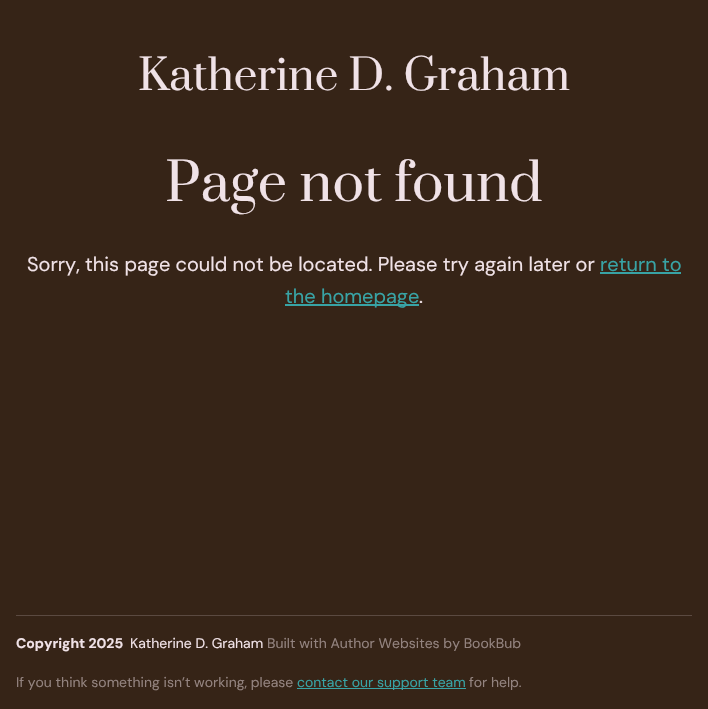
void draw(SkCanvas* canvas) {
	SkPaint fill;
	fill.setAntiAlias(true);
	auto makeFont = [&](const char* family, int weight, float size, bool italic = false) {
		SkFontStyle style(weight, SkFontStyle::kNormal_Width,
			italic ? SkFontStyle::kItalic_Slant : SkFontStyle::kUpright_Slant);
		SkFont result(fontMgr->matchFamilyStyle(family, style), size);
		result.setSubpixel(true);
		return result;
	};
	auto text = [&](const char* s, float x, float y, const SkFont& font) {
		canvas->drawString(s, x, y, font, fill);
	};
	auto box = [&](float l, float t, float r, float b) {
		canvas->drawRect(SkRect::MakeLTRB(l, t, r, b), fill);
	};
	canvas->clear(0xFF362417);
	fill.setColor(0xFF38A3A5);
	box(600, 272, 681, 274);
	box(285, 304, 419, 306);
	fill.setColor(0xFF5B4A41);
	box(16, 615, 692, 616);
	fill.setColor(0xFF38A3A5);
	box(297, 688, 466, 689);
	auto font1 = makeFont("Prata", 400, 42);
	fill.setColor(0xFFF0E2E7);
	text("Katherine D. Graham", 138, 90, font1);
	auto font2 = makeFont("Prata", 400, 52);
	text("Page not found", 165, 201, font2);
	auto font3 = makeFont("DM Sans", 400, 20);
	text("Sorry, this page could not be located. Please try again later or", 27, 271, font3);
	fill.setColor(0xFF38A3A5);
	text("return to", 600, 271, font3);
	text("the homepage", 285, 303, font3);
	fill.setColor(0xFFF0E2E7);
	text(".", 419, 303, font3);
	auto font4 = makeFont("DM Sans", 700, 14);
	text("Copyright 2025", 16, 648, font4);
	auto font5 = makeFont("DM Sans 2", 400, 14);
	text("Katherine D. Graham", 130, 648, font5);
	fill.setColor(0xFF93837F);
	text("Built with Author Websites by BookBub", 267, 648, font5);
	text("If you think something isn’t working, please", 16, 687, font5);
	fill.setColor(0xFF38A3A5);
	text("contact our support team", 297, 687, font5);
	fill.setColor(0xFF93837F);
	text("for help.", 469, 687, font5);
}
